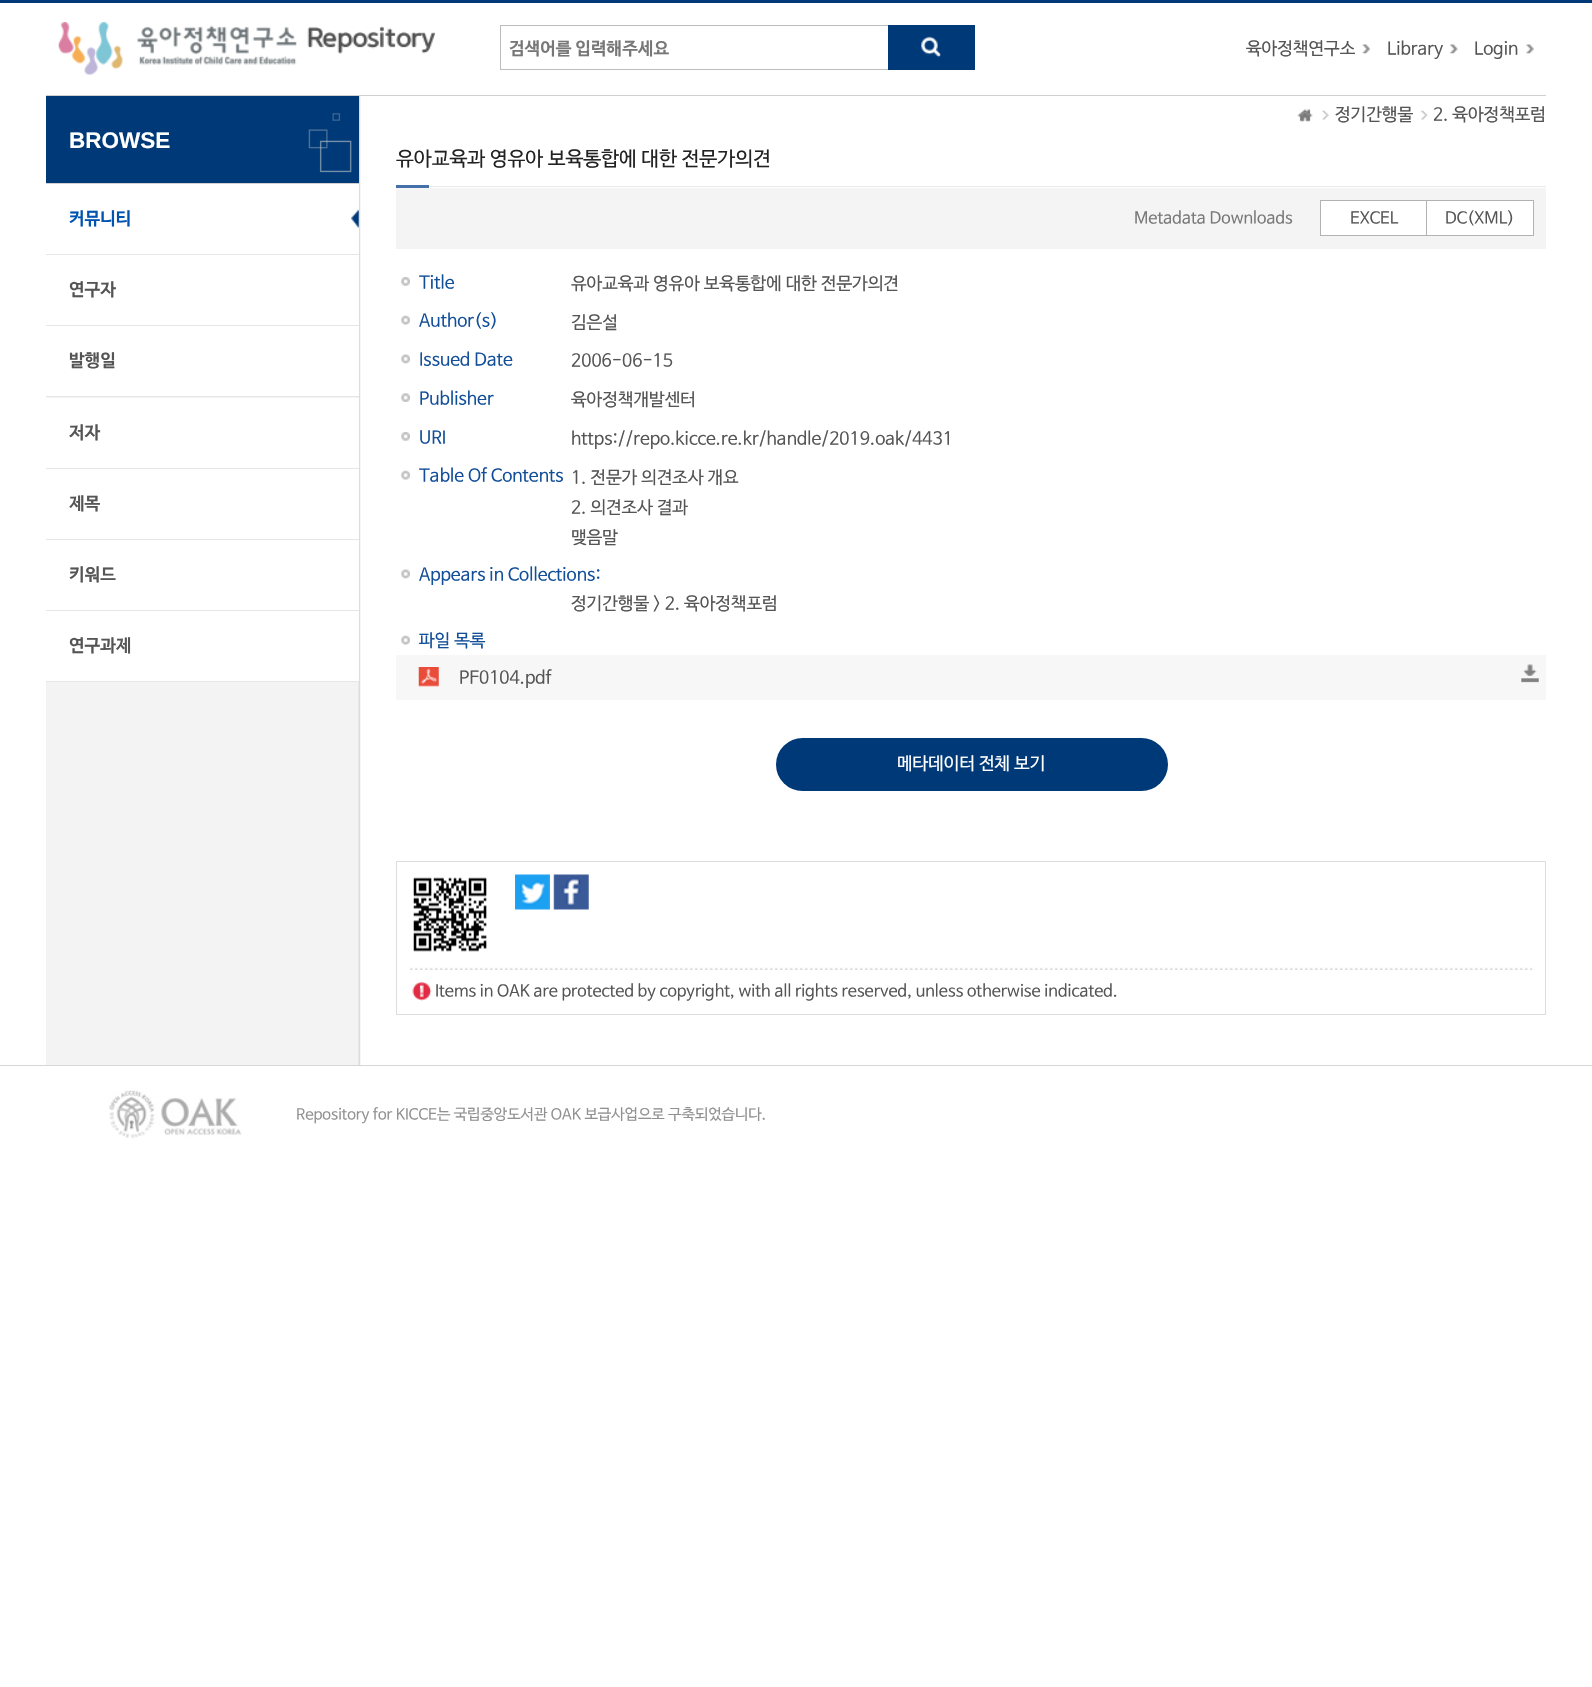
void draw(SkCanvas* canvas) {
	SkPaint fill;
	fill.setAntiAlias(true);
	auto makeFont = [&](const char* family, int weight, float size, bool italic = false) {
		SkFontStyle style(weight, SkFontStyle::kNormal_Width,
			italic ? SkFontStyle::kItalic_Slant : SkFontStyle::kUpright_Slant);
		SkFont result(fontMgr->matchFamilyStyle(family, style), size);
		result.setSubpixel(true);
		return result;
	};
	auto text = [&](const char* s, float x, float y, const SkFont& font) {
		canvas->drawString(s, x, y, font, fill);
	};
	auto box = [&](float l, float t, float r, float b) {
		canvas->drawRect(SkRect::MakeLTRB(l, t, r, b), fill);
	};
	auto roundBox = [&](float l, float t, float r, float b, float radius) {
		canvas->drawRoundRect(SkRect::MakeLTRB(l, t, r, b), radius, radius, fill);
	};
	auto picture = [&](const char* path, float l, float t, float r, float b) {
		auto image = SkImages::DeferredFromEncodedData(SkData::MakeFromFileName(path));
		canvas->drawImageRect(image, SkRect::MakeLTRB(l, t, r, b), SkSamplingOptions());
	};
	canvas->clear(0xFFFFFFFF);
	fill.setColor(0xFF003977);
	box(0, 0, 1592, 3);
	picture("image0.png", 58, 22, 435, 75);
	fill.setStyle(SkPaint::kStroke_Style);
	fill.setStrokeWidth(1);
	fill.setColor(0xFFBCBCBC);
	canvas->drawRect(SkRect::MakeLTRB(500.5f, 25.5f, 974.5f, 69.5f), fill);
	fill.setStyle(SkPaint::kFill_Style);
	fill.setColor(0xFF003977);
	box(888, 25, 975, 70);
	picture("image1.png", 921, 36, 941, 58);
	picture("image2.png", 1362, 44, 1370, 54);
	picture("image3.png", 1450, 44, 1458, 54);
	picture("image4.png", 1526, 44, 1534, 54);
	picture("image5.png", 46, 96, 361, 1065);
	fill.setColor(0xFFD0D0D0);
	box(46, 95, 1546, 96);
	fill.setColor(0xFF003977);
	box(46, 96, 359, 183);
	picture("image6.png", 308, 113, 352, 173);
	fill.setColor(0xFFD0D0D0);
	box(46, 183, 359, 184);
	fill.setColor(0xFFE6E6E6);
	box(46, 254, 359, 255);
	fill.setColor(0xFFFFFFFF);
	box(46, 184, 359, 254);
	picture("image7.png", 351, 209, 359, 229);
	fill.setColor(0xFFE6E6E6);
	box(46, 325, 359, 326);
	fill.setColor(0xFFFFFFFF);
	box(46, 255, 359, 325);
	fill.setColor(0xFFE6E6E6);
	box(46, 396, 359, 397);
	fill.setColor(0xFFFFFFFF);
	box(46, 326, 359, 396);
	fill.setColor(0xFFE6E6E6);
	box(46, 468, 359, 469);
	fill.setColor(0xFFFFFFFF);
	box(46, 398, 359, 468);
	fill.setColor(0xFFE6E6E6);
	box(46, 539, 359, 540);
	fill.setColor(0xFFFFFFFF);
	box(46, 469, 359, 539);
	fill.setColor(0xFFE6E6E6);
	box(46, 610, 359, 611);
	fill.setColor(0xFFFFFFFF);
	box(46, 540, 359, 610);
	fill.setColor(0xFFE6E6E6);
	box(46, 681, 359, 682);
	fill.setColor(0xFFFFFFFF);
	box(46, 611, 359, 681);
	picture("image8.png", 1297, 109, 1313, 122);
	picture("image9.png", 1322, 110, 1329, 120);
	picture("image10.png", 1421, 110, 1428, 120);
	fill.setColor(0xFFE9E9E9);
	box(429, 186, 1546, 187);
	fill.setColor(0xFF4471A9);
	box(396, 185, 429, 188);
	fill.setColor(0xFFF4F4F4);
	box(396, 188, 1546, 249);
	fill.setColor(0xFFFFFFFF);
	box(1321, 201, 1426, 235);
	fill.setStyle(SkPaint::kStroke_Style);
	fill.setColor(0xFFB2B2B2);
	canvas->drawRect(SkRect::MakeLTRB(1320.5f, 200.5f, 1427.5f, 235.5f), fill);
	fill.setStyle(SkPaint::kFill_Style);
	fill.setColor(0xFFFFFFFF);
	canvas->drawRect(SkRect::MakeLTRB(1426.5f, 200.5f, 1533.5f, 235.5f), fill);
	fill.setStyle(SkPaint::kStroke_Style);
	fill.setColor(0xFFB2B2B2);
	canvas->drawRect(SkRect::MakeLTRB(1426.5f, 200.5f, 1533.5f, 235.5f), fill);
	picture("image11.png", 401, 277, 410, 286);
	picture("image12.png", 401, 315, 410, 325);
	picture("image13.png", 401, 354, 410, 364);
	picture("image14.png", 401, 393, 410, 402);
	picture("image15.png", 401, 432, 410, 441);
	picture("image12.png", 401, 470, 410, 480);
	picture("image13.png", 401, 569, 410, 579);
	picture("image12.png", 401, 635, 410, 645);
	fill.setStyle(SkPaint::kFill_Style);
	fill.setColor(0xFFF7F7F7);
	box(396, 655, 1546, 700);
	picture("image16.png", 418, 667, 439, 687);
	picture("image17.png", 1521, 664, 1539, 683);
	fill.setColor(0xFF003977);
	roundBox(776, 738, 1168, 791, 26.5f);
	fill.setStyle(SkPaint::kStroke_Style);
	fill.setColor(0xFFDDDDDD);
	canvas->drawRect(SkRect::MakeLTRB(396.5f, 861.5f, 1545.5f, 1014.5f), fill);
	picture("image18.png", 410, 967, 1533, 970);
	picture("image19.png", 413, 877, 487, 952);
	picture("image20.png", 515, 874, 550, 910);
	picture("image21.png", 553, 874, 589, 910);
	picture("image22.png", 412, 982, 432, 1001);
	fill.setStyle(SkPaint::kFill_Style);
	fill.setColor(0xFFD6D6D6);
	box(0, 1065, 1592, 1066);
	picture("image23.png", 108, 1090, 242, 1139);
	auto font1 = makeFont("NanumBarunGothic", 700, 17.5f);
	fill.setColor(0xFF777777);
	text("검색어를 입력해주세요", 509, 54, font1);
	auto font2 = makeFont("NanumBarunGothic", 400, 17.5f);
	fill.setColor(0xFF555555);
	text("육아정책연구소", 1246, 54, font2);
	text("Library", 1387, 54, font2);
	text("Login", 1474, 54, font2);
	auto font3 = makeFont("Liberation Sans", 700, 22.5f);
	fill.setColor(0xFFFFFFFF);
	text("BROWSE", 69, 148, font3);
	fill.setColor(0xFF0053AE);
	text("커뮤니티", 69, 224, font1);
	fill.setColor(0xFF555555);
	text("연구자", 69, 295, font1);
	text("발행일", 69, 366, font1);
	text("저자", 69, 438, font1);
	text("제목", 69, 509, font1);
	text("키워드", 69, 580, font1);
	text("연구과제", 69, 651, font1);
	text("정기간행물", 1335, 120, font2);
	text("2. 육아정책포럼", 1433, 120, font2);
	auto font4 = makeFont("NanumBarunGothic", 400, 20);
	fill.setColor(0xFF222222);
	text("유아교육과 영유아 보육통합에 대한 전문가의견", 396, 165, font4);
	auto font5 = makeFont("NanumBarunGothic", 400, 16.25f);
	fill.setColor(0xFF777777);
	text("Metadata Downloads", 1134, 223, font5);
	fill.setColor(0xFF555555);
	text("EXCEL", 1350, 223, font5);
	text("DC(XML)", 1445, 223, font5);
	fill.setColor(0xFF134F98);
	text("Title", 419, 288, font2);
	fill.setColor(0xFF555555);
	text("유아교육과 영유아 보육통합에 대한 전문가의견", 571, 289, font2);
	fill.setColor(0xFF134F98);
	text("Author(s)", 419, 326, font2);
	fill.setColor(0xFF555555);
	text("김은설", 571, 328, font2);
	fill.setColor(0xFF134F98);
	text("Issued Date", 419, 365, font2);
	fill.setColor(0xFF555555);
	text("2006-06-15", 571, 366, font2);
	fill.setColor(0xFF134F98);
	text("Publisher", 419, 404, font2);
	fill.setColor(0xFF555555);
	text("육아정책개발센터", 571, 405, font2);
	fill.setColor(0xFF134F98);
	text("URI", 419, 443, font2);
	fill.setColor(0xFF555555);
	text("https://repo.kicce.re.kr/handle/2019.oak/4431", 571, 444, font2);
	fill.setColor(0xFF134F98);
	text("Table Of Contents", 419, 481, font2);
	fill.setColor(0xFF555555);
	text("1. 전문가 의견조사 개요", 571, 483, font2);
	text("2. 의견조사 결과", 571, 513, font2);
	text("맺음말", 571, 543, font2);
	fill.setColor(0xFF134F98);
	text("Appears in Collections:", 419, 580, font2);
	fill.setColor(0xFF555555);
	text("정기간행물 > 2. 육아정책포럼", 571, 609, font2);
	fill.setColor(0xFF134F98);
	text("파일 목록", 419, 646, font2);
	fill.setColor(0xFF555555);
	text("PF0104.pdf", 459, 683, font2);
	fill.setColor(0xFFFFFFFF);
	text("메타데이터 전체 보기", 897, 769, font2);
	fill.setColor(0xFF555555);
	text("Items in OAK are protected by copyright, with all rights reserved, unless otherwise indicated.", 435, 996, font5);
	auto font6 = makeFont("NanumBarunGothic", 400, 15);
	fill.setColor(0xFF919191);
	text("Repository for KICCE는 국립중앙도서관 OAK 보급사업으로 구축되었습니다.", 296, 1119, font6);
}
